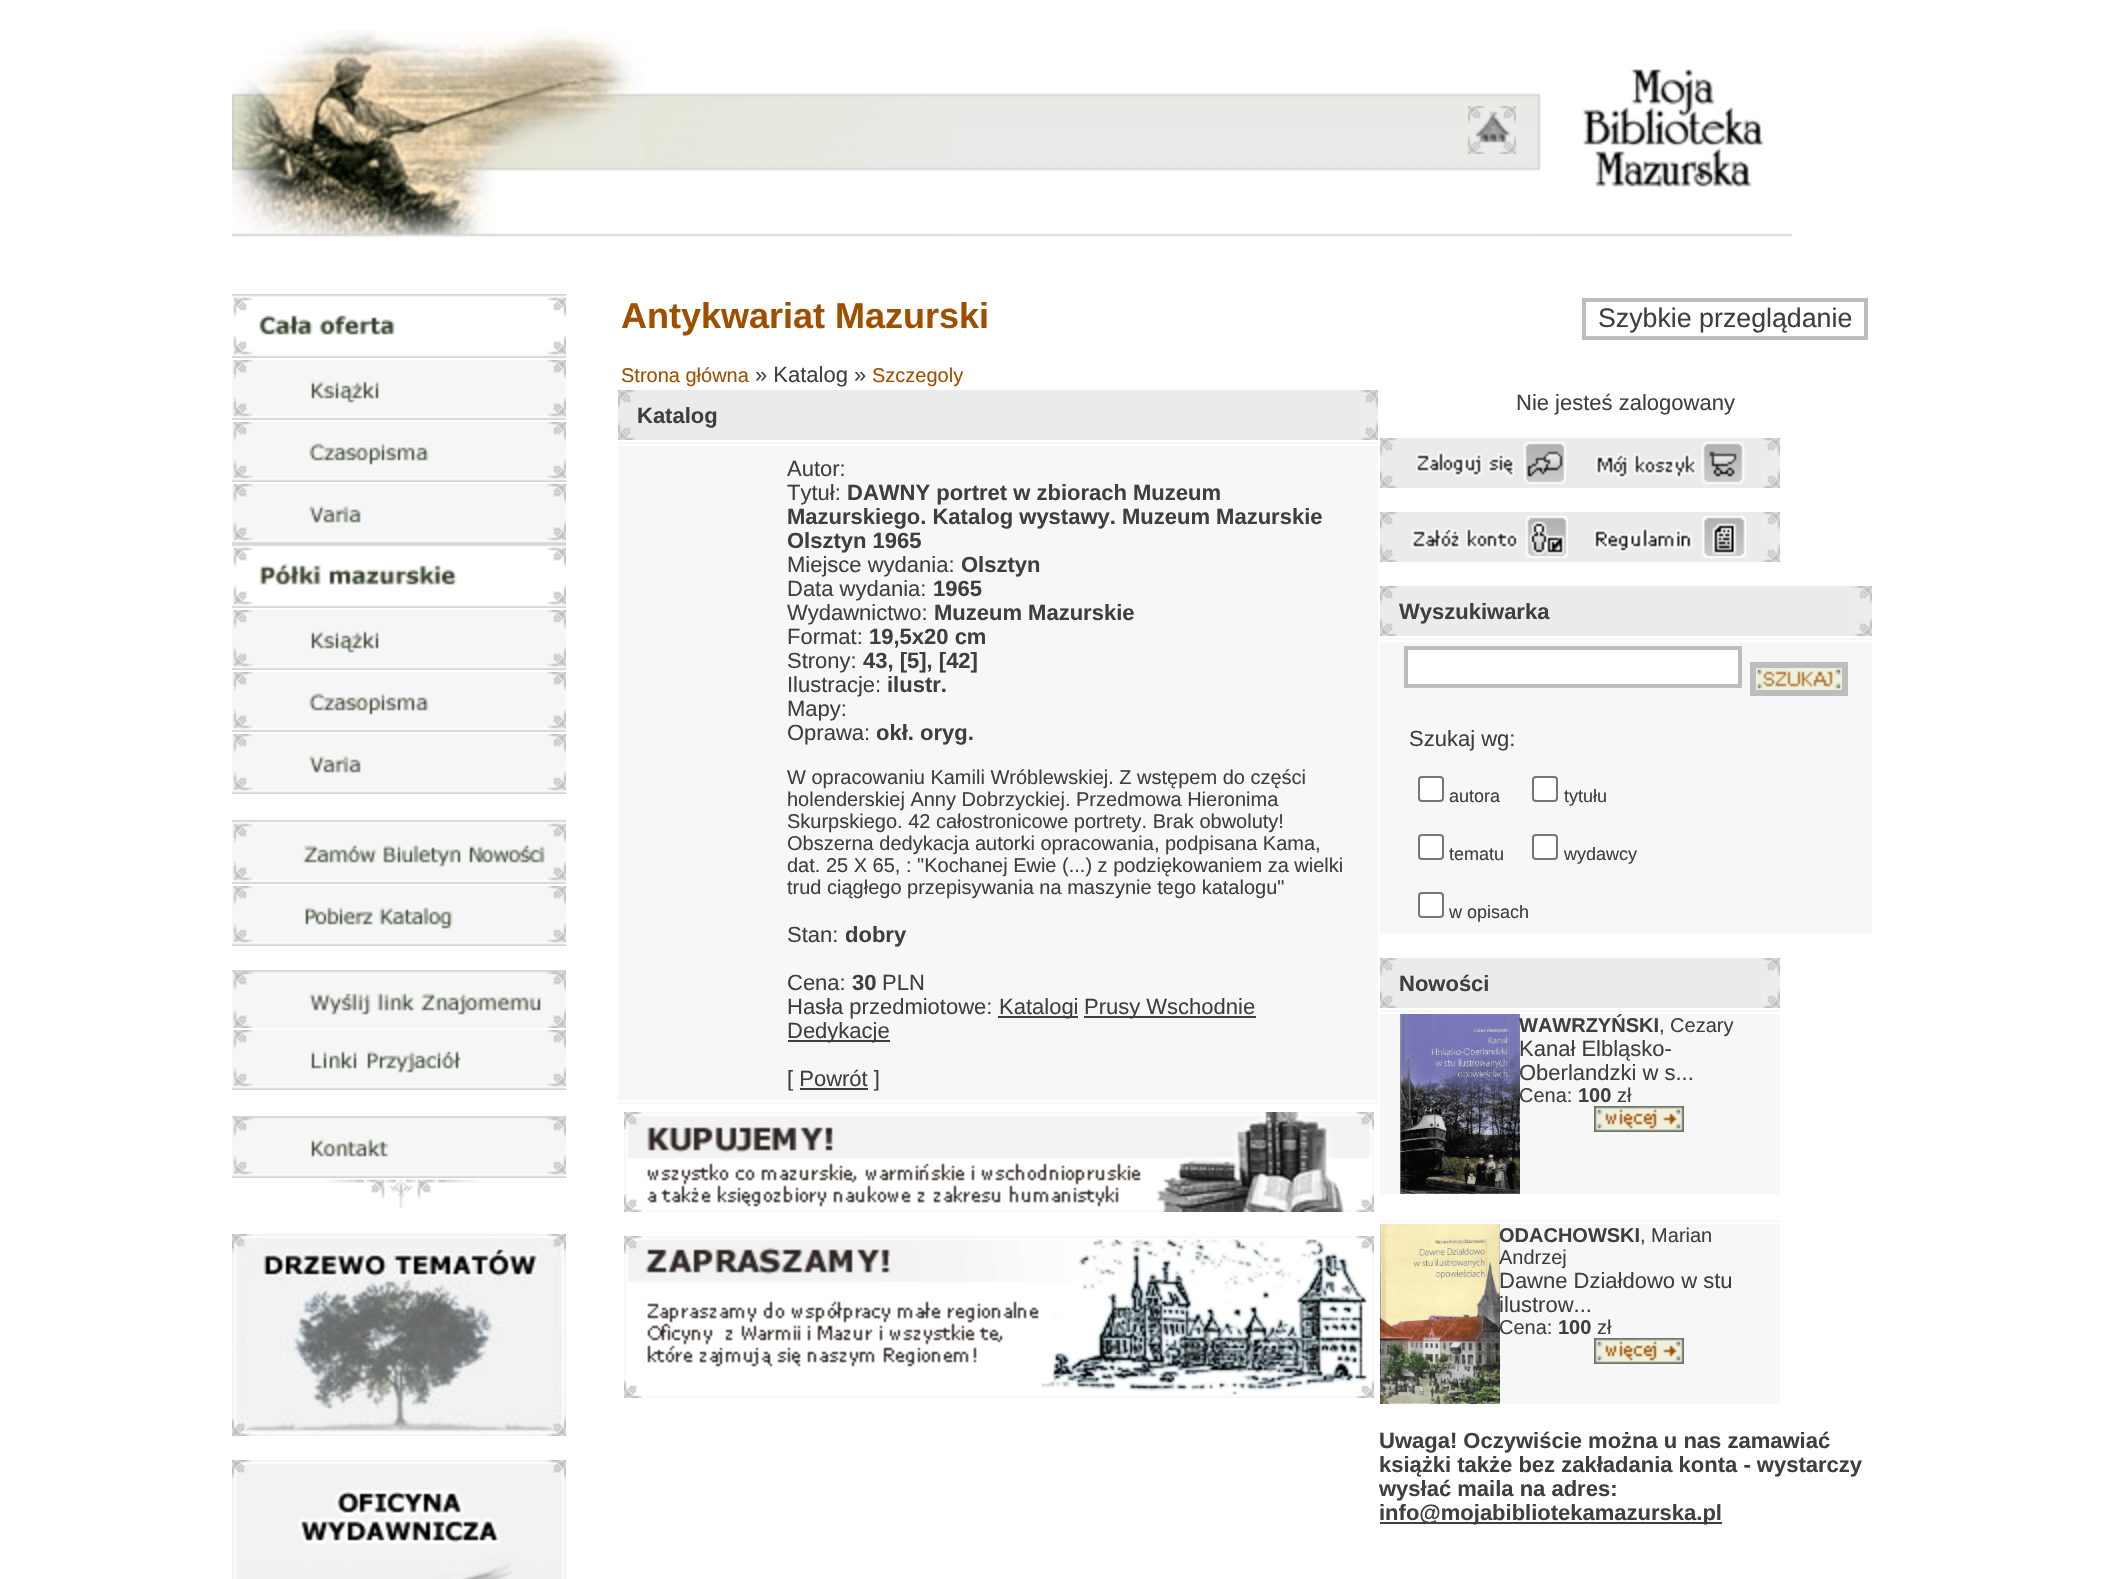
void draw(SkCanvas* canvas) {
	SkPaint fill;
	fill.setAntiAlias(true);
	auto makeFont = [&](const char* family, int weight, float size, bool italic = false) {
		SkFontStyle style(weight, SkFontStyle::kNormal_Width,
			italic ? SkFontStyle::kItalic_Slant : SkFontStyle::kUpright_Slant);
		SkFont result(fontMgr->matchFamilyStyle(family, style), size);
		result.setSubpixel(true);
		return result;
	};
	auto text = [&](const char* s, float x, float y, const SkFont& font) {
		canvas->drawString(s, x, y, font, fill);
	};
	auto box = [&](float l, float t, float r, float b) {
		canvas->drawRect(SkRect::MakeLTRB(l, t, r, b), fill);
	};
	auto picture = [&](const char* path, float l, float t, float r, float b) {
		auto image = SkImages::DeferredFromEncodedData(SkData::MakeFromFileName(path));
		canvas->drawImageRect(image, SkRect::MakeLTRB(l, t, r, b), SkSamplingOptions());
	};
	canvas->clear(0xFFFFFFFF);
	picture("image0.png", 232, 30, 644, 238);
	picture("image1.png", 644, 93, 954, 237);
	picture("image2.png", 954, 93, 1536, 237);
	picture("image3.png", 1468, 106, 1516, 154);
	picture("image4.png", 1536, 69, 1792, 237);
	picture("image5.png", 232, 294, 566, 358);
	picture("image6.png", 232, 360, 566, 420);
	picture("image7.png", 232, 422, 566, 482);
	picture("image8.png", 232, 484, 566, 544);
	picture("image9.png", 232, 544, 566, 608);
	picture("image6.png", 232, 610, 566, 670);
	picture("image7.png", 232, 672, 566, 732);
	picture("image8.png", 232, 734, 566, 794);
	picture("image10.png", 232, 820, 566, 884);
	picture("image11.png", 232, 886, 566, 946);
	picture("image12.png", 232, 970, 566, 1028);
	picture("image13.png", 232, 1030, 566, 1090);
	picture("image14.png", 232, 1116, 566, 1178);
	picture("image15.png", 324, 1179, 478, 1209);
	picture("image16.png", 232, 1234, 566, 1436);
	picture("image17.png", 232, 1460, 566, 1579);
	fill.setStyle(SkPaint::kStroke_Style);
	fill.setStrokeWidth(4);
	fill.setColor(0xFFBDBDBD);
	canvas->drawRect(SkRect::MakeLTRB(1584, 300, 1866, 338), fill);
	fill.setStyle(SkPaint::kFill_Style);
	fill.setColor(0xFFEBEBEB);
	box(636, 390, 1360, 440);
	picture("image18.png", 618, 390, 636, 440);
	picture("image19.png", 1360, 390, 1378, 440);
	fill.setColor(0xFFF7F7F7);
	box(618, 442, 1378, 444);
	box(618, 446, 1378, 1100);
	fill.setColor(0xFF3F3F3F);
	box(998, 1016, 1078, 1018);
	box(1084, 1016, 1256, 1018);
	box(788, 1040, 890, 1042);
	box(800, 1088, 868, 1090);
	fill.setColor(0xFFF7F7F7);
	box(618, 1102, 1378, 1104);
	picture("image20.png", 624, 1112, 1374, 1212);
	picture("image21.png", 624, 1236, 1374, 1398);
	fill.setColor(0xFFEBEBEB);
	box(1398, 438, 1762, 488);
	picture("image18.png", 1380, 438, 1398, 488);
	picture("image19.png", 1762, 438, 1780, 488);
	picture("image22.png", 1415, 442, 1566, 484);
	picture("image23.png", 1595, 442, 1745, 484);
	box(1398, 512, 1762, 562);
	picture("image18.png", 1380, 512, 1398, 562);
	picture("image19.png", 1762, 512, 1780, 562);
	picture("image24.png", 1412, 516, 1568, 558);
	picture("image25.png", 1594, 516, 1746, 558);
	box(1398, 586, 1854, 636);
	picture("image18.png", 1380, 586, 1398, 636);
	picture("image19.png", 1854, 586, 1872, 636);
	fill.setColor(0xFFF7F7F7);
	box(1380, 638, 1872, 640);
	box(1380, 642, 1872, 934);
	fill.setColor(0xFFFFFFFF);
	canvas->drawRect(SkRect::MakeLTRB(1406, 648, 1740, 686), fill);
	fill.setStyle(SkPaint::kStroke_Style);
	fill.setColor(0xFFBDBDBD);
	canvas->drawRect(SkRect::MakeLTRB(1406, 648, 1740, 686), fill);
	fill.setStrokeWidth(6);
	canvas->drawRect(SkRect::MakeLTRB(1753, 665, 1845, 693), fill);
	picture("image26.png", 1756, 668, 1842, 690);
	fill.setStyle(SkPaint::kFill_Style);
	fill.setColor(0xFFFFFFFF);
	canvas->drawRoundRect(SkRect::MakeLTRB(1419, 777, 1443, 801), 3, 3, fill);
	fill.setStyle(SkPaint::kStroke_Style);
	fill.setStrokeWidth(2);
	fill.setColor(0xFF767676);
	canvas->drawRoundRect(SkRect::MakeLTRB(1419, 777, 1443, 801), 3, 3, fill);
	fill.setStyle(SkPaint::kFill_Style);
	fill.setColor(0xFFFFFFFF);
	canvas->drawRoundRect(SkRect::MakeLTRB(1533, 777, 1557, 801), 3, 3, fill);
	fill.setStyle(SkPaint::kStroke_Style);
	fill.setColor(0xFF767676);
	canvas->drawRoundRect(SkRect::MakeLTRB(1533, 777, 1557, 801), 3, 3, fill);
	fill.setStyle(SkPaint::kFill_Style);
	fill.setColor(0xFFFFFFFF);
	canvas->drawRoundRect(SkRect::MakeLTRB(1419, 835, 1443, 859), 3, 3, fill);
	fill.setStyle(SkPaint::kStroke_Style);
	fill.setColor(0xFF767676);
	canvas->drawRoundRect(SkRect::MakeLTRB(1419, 835, 1443, 859), 3, 3, fill);
	fill.setStyle(SkPaint::kFill_Style);
	fill.setColor(0xFFFFFFFF);
	canvas->drawRoundRect(SkRect::MakeLTRB(1533, 835, 1557, 859), 3, 3, fill);
	fill.setStyle(SkPaint::kStroke_Style);
	fill.setColor(0xFF767676);
	canvas->drawRoundRect(SkRect::MakeLTRB(1533, 835, 1557, 859), 3, 3, fill);
	fill.setStyle(SkPaint::kFill_Style);
	fill.setColor(0xFFFFFFFF);
	canvas->drawRoundRect(SkRect::MakeLTRB(1419, 893, 1443, 917), 3, 3, fill);
	fill.setStyle(SkPaint::kStroke_Style);
	fill.setColor(0xFF767676);
	canvas->drawRoundRect(SkRect::MakeLTRB(1419, 893, 1443, 917), 3, 3, fill);
	fill.setStyle(SkPaint::kFill_Style);
	fill.setColor(0xFFEBEBEB);
	box(1398, 958, 1762, 1008);
	picture("image18.png", 1380, 958, 1398, 1008);
	picture("image19.png", 1762, 958, 1780, 1008);
	fill.setColor(0xFFF7F7F7);
	box(1380, 1010, 1780, 1012);
	box(1380, 1014, 1400, 1194);
	box(1520, 1014, 1780, 1194);
	picture("image27.png", 1400, 1014, 1520, 1194);
	picture("image28.png", 1594, 1106, 1684, 1132);
	box(1380, 1220, 1780, 1222);
	box(1500, 1224, 1780, 1404);
	picture("image29.png", 1380, 1224, 1500, 1404);
	picture("image28.png", 1594, 1338, 1684, 1364);
	fill.setColor(0xFF3F3F3F);
	box(1380, 1522, 1722, 1524);
	auto font1 = makeFont("Liberation Sans", 700, 36);
	fill.setColor(0xFF9F4F00);
	text("Antykwariat Mazurski", 621, 328, font1);
	auto font2 = makeFont("Liberation Sans", 400, 20);
	text("Strona główna", 621, 382, font2);
	auto font3 = makeFont("Liberation Sans", 400, 22);
	fill.setColor(0xFF3F3F3F);
	text("» Katalog »", 755, 382, font3);
	fill.setColor(0xFF9F4F00);
	text("Szczegoly", 872, 382, font2);
	auto font4 = makeFont("Liberation Sans", 400, 26.75f);
	fill.setColor(0xFF3F3F3F);
	text("Szybkie przeglądanie", 1598, 327, font4);
	auto font5 = makeFont("Liberation Sans", 700, 22);
	text("Katalog", 637, 423, font5);
	text("Autor:", 787, 476, font3);
	text("Tytuł:", 787, 500, font3);
	text("DAWNY portret w zbiorach Muzeum", 847, 500, font5);
	text("Mazurskiego. Katalog wystawy. Muzeum Mazurskie", 787, 524, font5);
	text("Olsztyn 1965", 787, 548, font5);
	text("Miejsce wydania:", 787, 572, font3);
	text("Olsztyn", 961, 572, font5);
	text("Data wydania:", 787, 596, font3);
	text("1965", 933, 596, font5);
	text("Wydawnictwo:", 787, 620, font3);
	text("Muzeum Mazurskie", 934, 620, font5);
	text("Format:", 787, 644, font3);
	text("19,5x20 cm", 869, 644, font5);
	text("Strony:", 787, 668, font3);
	text("43, [5], [42]", 863, 668, font5);
	text("Ilustracje:", 787, 692, font3);
	text("ilustr.", 887, 692, font5);
	text("Mapy:", 787, 716, font3);
	text("Oprawa:", 787, 740, font3);
	text("okł. oryg.", 876, 740, font5);
	text("W opracowaniu Kamili Wróblewskiej. Z wstępem do części", 787, 784, font2);
	text("holenderskiej Anny Dobrzyckiej. Przedmowa Hieronima", 787, 806, font2);
	text("Skurpskiego. 42 całostronicowe portrety. Brak obwoluty!", 787, 828, font2);
	text("Obszerna dedykacja autorki opracowania, podpisana Kama,", 787, 850, font2);
	text("dat. 25 X 65, : \"Kochanej Ewie (...) z podziękowaniem za wielki", 787, 872, font2);
	text("trud ciągłego przepisywania na maszynie tego katalogu\"", 787, 894, font2);
	text("Stan:", 787, 942, font3);
	text("dobry", 845, 942, font5);
	text("Cena:", 787, 990, font3);
	text("30", 852, 990, font5);
	text("PLN", 882, 990, font3);
	text("Hasła przedmiotowe:", 787, 1014, font3);
	text("Katalogi", 999, 1014, font3);
	text("Prusy Wschodnie", 1084, 1014, font3);
	text("Dedykacje", 787, 1038, font3);
	text("[ Powrót ]", 787, 1086, font3);
	text("Nie jesteś zalogowany", 1516, 410, font3);
	text("Wyszukiwarka", 1399, 619, font5);
	text("Szukaj wg:", 1409, 746, font3);
	auto font6 = makeFont("Liberation Sans", 400, 18);
	text("autora", 1449, 802, font6);
	text("tytułu", 1564, 802, font6);
	text("tematu", 1449, 860, font6);
	text("wydawcy", 1564, 860, font6);
	text("w opisach", 1449, 918, font6);
	text("Nowości", 1399, 991, font5);
	auto font7 = makeFont("Liberation Sans", 700, 20);
	text("WAWRZYŃSKI", 1519, 1032, font7);
	text(", Cezary", 1659, 1032, font2);
	text("Kanał Elbląsko-", 1519, 1056, font3);
	text("Oberlandzki w s...", 1519, 1080, font3);
	text("Cena:", 1519, 1102, font2);
	text("100", 1578, 1102, font7);
	text("zł", 1617, 1102, font2);
	text("ODACHOWSKI", 1499, 1242, font7);
	text(", Marian", 1640, 1242, font2);
	text("Andrzej", 1499, 1264, font2);
	text("Dawne Działdowo w stu", 1499, 1288, font3);
	text("ilustrow...", 1499, 1312, font3);
	text("Cena:", 1499, 1334, font2);
	text("100", 1558, 1334, font7);
	text("zł", 1597, 1334, font2);
	text("Uwaga! Oczywiście można u nas zamawiać", 1379, 1448, font5);
	text("książki także bez zakładania konta - wystarczy", 1379, 1472, font5);
	text("wysłać maila na adres:", 1379, 1496, font5);
	text("info@mojabibliotekamazurska.pl", 1379, 1520, font5);
}
